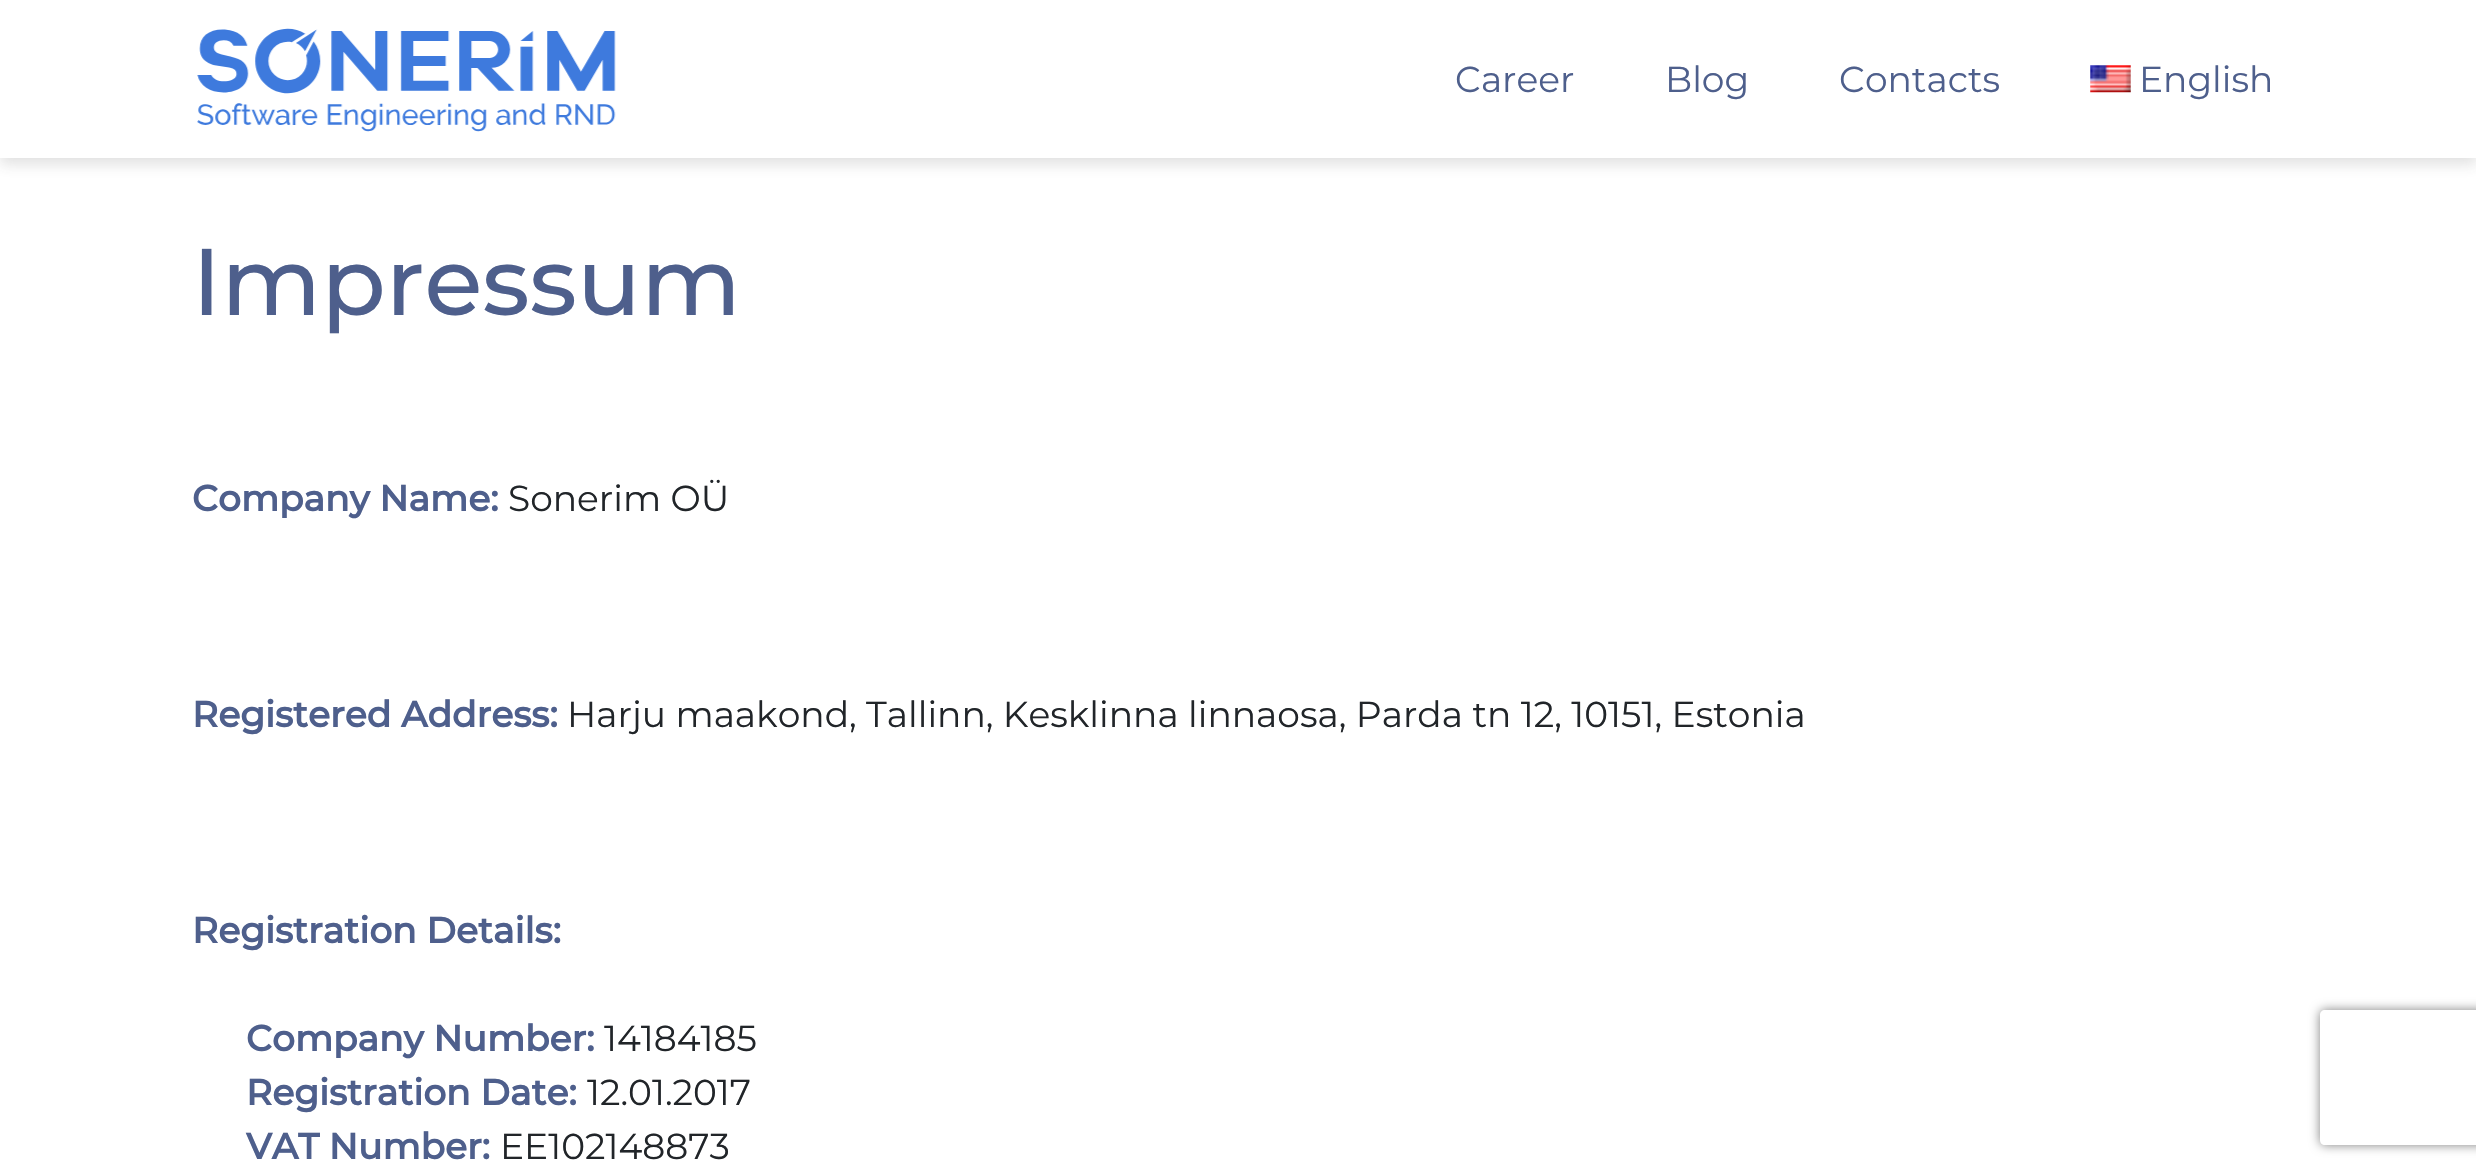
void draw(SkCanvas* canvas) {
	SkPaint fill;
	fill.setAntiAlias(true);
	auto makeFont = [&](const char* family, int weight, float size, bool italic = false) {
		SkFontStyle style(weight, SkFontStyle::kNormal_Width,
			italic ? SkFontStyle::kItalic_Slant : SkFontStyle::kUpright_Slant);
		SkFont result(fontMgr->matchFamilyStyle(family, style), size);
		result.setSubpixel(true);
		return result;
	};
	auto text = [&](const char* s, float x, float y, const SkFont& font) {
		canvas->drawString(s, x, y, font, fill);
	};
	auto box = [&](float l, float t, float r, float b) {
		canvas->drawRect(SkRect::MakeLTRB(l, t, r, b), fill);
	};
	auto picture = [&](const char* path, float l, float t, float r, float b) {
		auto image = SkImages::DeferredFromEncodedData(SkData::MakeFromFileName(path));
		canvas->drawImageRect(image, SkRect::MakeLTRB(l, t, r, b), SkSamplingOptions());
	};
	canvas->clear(0xFFFFFFFF);
	fill.setColor(0x29393939);
	fill.setMaskFilter(SkMaskFilter::MakeBlur(kNormal_SkBlurStyle, 7));
	canvas->drawRect(SkRect::MakeLTRB(0, 7, 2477, 164), fill);
	fill.setMaskFilter(nullptr);
	fill.setColor(0xFFFFFFFF);
	box(0, 0, 2476, 158);
	picture("image0.png", 197, 28, 616, 132);
	picture("image1.png", 2090, 65, 2131, 93);
	canvas->save();
	canvas->clipPath(SkPathBuilder(SkPathFillType::kEvenOdd).moveTo(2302, 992).lineTo(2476, 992).lineTo(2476, 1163).lineTo(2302, 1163).close().moveTo(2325, 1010).lineTo(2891, 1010).cubicTo(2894, 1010, 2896, 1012, 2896, 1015).lineTo(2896, 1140).cubicTo(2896, 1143, 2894, 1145, 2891, 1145).lineTo(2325, 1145).cubicTo(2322, 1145, 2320, 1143, 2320, 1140).lineTo(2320, 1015).cubicTo(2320, 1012, 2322, 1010, 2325, 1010).close().detach(), true);
	fill.setColor(0xFF808080);
	fill.setMaskFilter(SkMaskFilter::MakeBlur(kNormal_SkBlurStyle, 5.5f));
	canvas->drawRoundRect(SkRect::MakeLTRB(2320, 1010, 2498, 1145), 5, 5, fill);
	fill.setMaskFilter(nullptr);
	canvas->restore();
	auto font1 = makeFont("Montserrat", 400, 36);
	fill.setColor(0xFF4E5F8C);
	text("Career", 1455, 92, font1);
	text("Blog", 1665, 92, font1);
	text("Contacts", 1839, 92, font1);
	text("English", 2139, 92, font1);
	auto font2 = makeFont("Montserrat", 500, 94.5f);
	text("Impressum", 192, 315, font2);
	auto font3 = makeFont("Montserrat", 700, 36);
	text("Company Name:", 192, 511, font3);
	fill.setColor(0xFF212529);
	text("Sonerim OÜ", 508, 511, font1);
	fill.setColor(0xFF4E5F8C);
	text("Registered Address:", 192, 727, font3);
	fill.setColor(0xFF212529);
	text("Harju maakond, Tallinn, Kesklinna linnaosa, Parda tn 12, 10151, Estonia", 567, 727, font1);
	fill.setColor(0xFF4E5F8C);
	text("Registration Details:", 192, 943, font3);
	text("Company Number:", 246, 1051, font3);
	fill.setColor(0xFF212529);
	text("14184185", 604, 1051, font1);
	fill.setColor(0xFF4E5F8C);
	text("Registration Date:", 246, 1105, font3);
	fill.setColor(0xFF212529);
	text("12.01.2017", 587, 1105, font1);
	fill.setColor(0xFF4E5F8C);
	text("VAT Number:", 246, 1159, font3);
	fill.setColor(0xFF212529);
	text("EE102148873", 500, 1159, font1);
}
